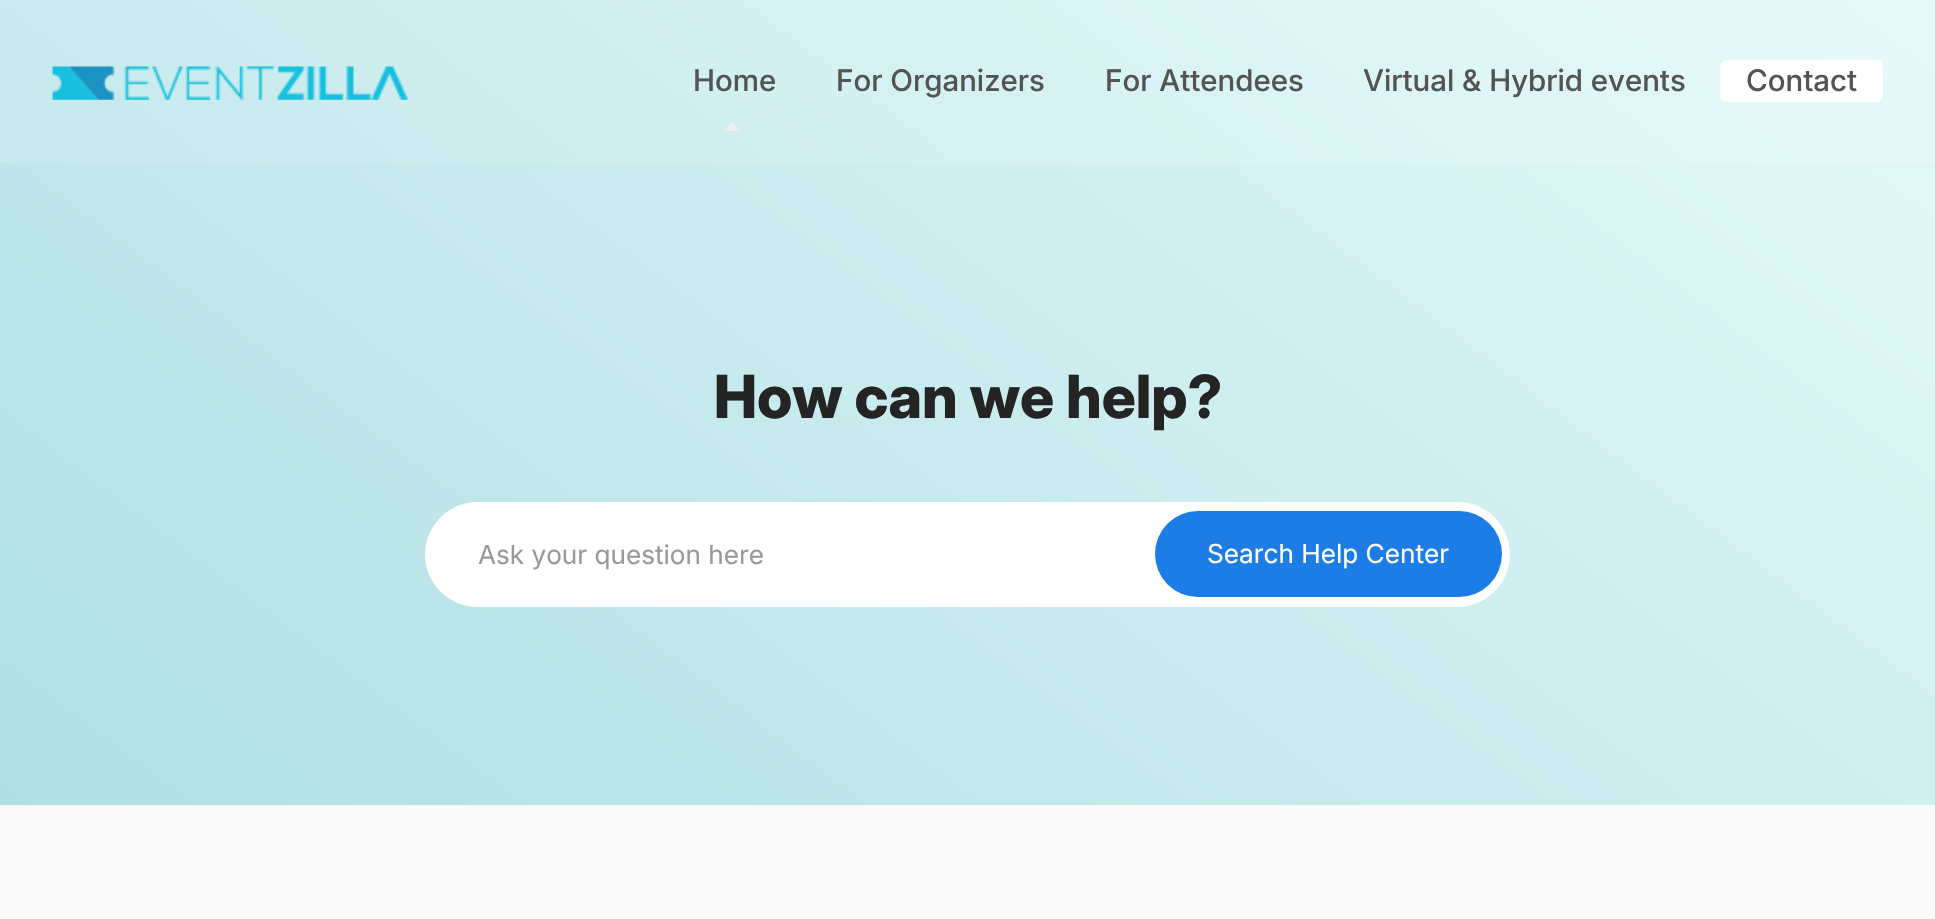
void draw(SkCanvas* canvas) {
	SkPaint fill;
	fill.setAntiAlias(true);
	auto makeFont = [&](const char* family, int weight, float size, bool italic = false) {
		SkFontStyle style(weight, SkFontStyle::kNormal_Width,
			italic ? SkFontStyle::kItalic_Slant : SkFontStyle::kUpright_Slant);
		SkFont result(fontMgr->matchFamilyStyle(family, style), size);
		result.setSubpixel(true);
		return result;
	};
	auto text = [&](const char* s, float x, float y, const SkFont& font) {
		canvas->drawString(s, x, y, font, fill);
	};
	auto box = [&](float l, float t, float r, float b) {
		canvas->drawRect(SkRect::MakeLTRB(l, t, r, b), fill);
	};
	auto roundBox = [&](float l, float t, float r, float b, float radius) {
		canvas->drawRoundRect(SkRect::MakeLTRB(l, t, r, b), radius, radius, fill);
	};
	auto picture = [&](const char* path, float l, float t, float r, float b) {
		auto image = SkImages::DeferredFromEncodedData(SkData::MakeFromFileName(path));
		canvas->drawImageRect(image, SkRect::MakeLTRB(l, t, r, b), SkSamplingOptions());
	};
	canvas->clear(0xFFF9F9F9);
	{
		const SkColor colors[] = {0xFFB7E2E7, 0xFFE8FAF9};
		const float stops[] = {0, 1};
		const SkPoint ends[] = {{424, 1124}, {1512, -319}};
		fill.setShader(SkGradientShader::MakeLinear(ends, colors, stops, 2, SkTileMode::kClamp));
		fill.setAlpha(255);
	}
	box(0, 0, 1935, 161);
	picture("image0.png", 52, 66, 408, 100);
	fill.setShader(nullptr);
	fill.setColor(0xFFF0F0F0);
	canvas->drawPath(SkPathBuilder().moveTo(740, 131).lineTo(723, 131).lineTo(731.5f, 122.5f).close().detach(), fill);
	fill.setColor(0xFFFFFFFF);
	roundBox(1720, 60, 1883, 102, 7);
	{
		const SkColor colors[] = {0xFFAFDFE4, 0xFFE5F9F8};
		const float stops[] = {0, 1};
		const SkPoint ends[] = {{424, 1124}, {1512, -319}};
		fill.setShader(SkGradientShader::MakeLinear(ends, colors, stops, 2, SkTileMode::kClamp));
		fill.setAlpha(255);
	}
	box(0, 163, 1935, 805);
	{
		const SkColor colors[] = {0xFFBBE3E8, 0xFFE9FAF9};
		const float stops[] = {0, 1};
		const SkPoint ends[] = {{424, 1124}, {1512, -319}};
		fill.setShader(SkGradientShader::MakeLinear(ends, colors, stops, 2, SkTileMode::kClamp));
		fill.setAlpha(255);
	}
	box(0, 161, 1935, 163);
	fill.setShader(nullptr);
	fill.setColor(0xFFFFFFFF);
	roundBox(425, 502, 1510, 607, 52.5f);
	fill.setColor(0xFF1C7DE7);
	roundBox(1155, 511, 1502, 597, 43);
	auto font1 = makeFont("Inter", 500, 29.75f);
	fill.setColor(0xFF545454);
	text("Home", 693, 91, font1);
	text("For Organizers", 836, 91, font1);
	text("For Attendees", 1105, 91, font1);
	text("Virtual & Hybrid events", 1363, 91, font1);
	text("Contact", 1746, 91, font1);
	auto font2 = makeFont("Inter", 800, 59.5f);
	fill.setColor(0xFF242424);
	text("How can we help?", 714, 418, font2);
	auto font3 = makeFont("Inter", 400, 26.25f);
	fill.setColor(0xFF999999);
	text("Ask your question here", 478, 564, font3);
	fill.setColor(0xFFFFFFFF);
	text("Search Help Center", 1207, 563, font3);
}
